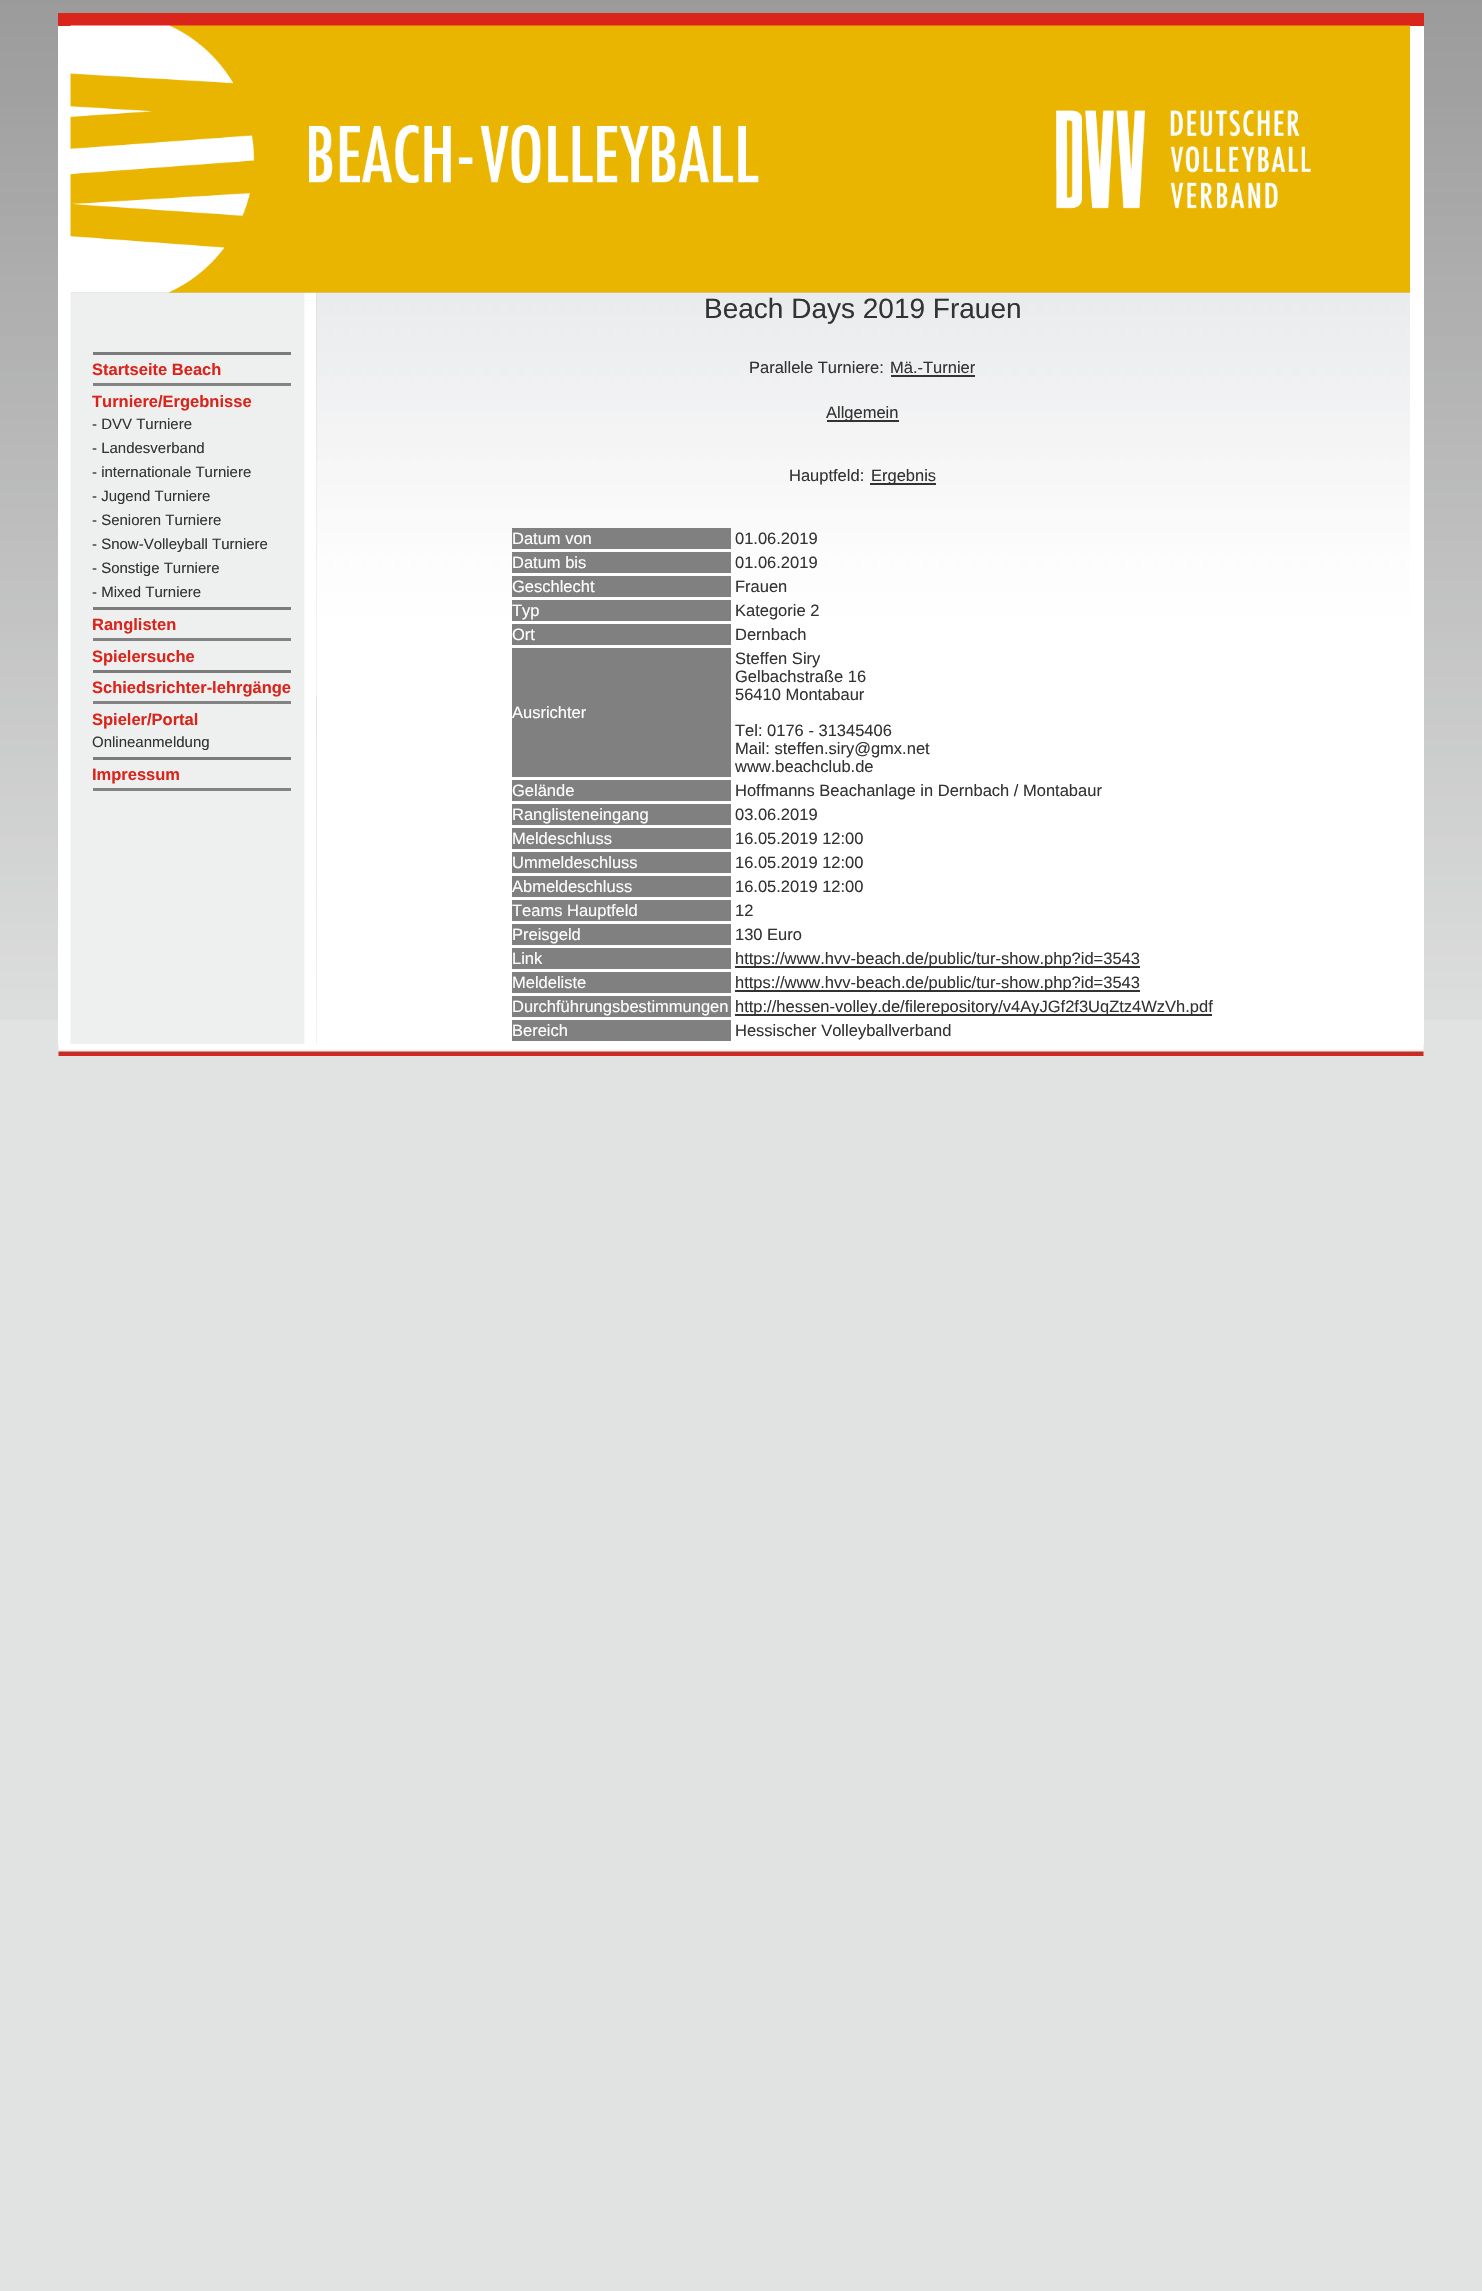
void draw(SkCanvas* canvas) {
	SkPaint fill;
	fill.setAntiAlias(true);
	auto makeFont = [&](const char* family, int weight, float size, bool italic = false) {
		SkFontStyle style(weight, SkFontStyle::kNormal_Width,
			italic ? SkFontStyle::kItalic_Slant : SkFontStyle::kUpright_Slant);
		SkFont result(fontMgr->matchFamilyStyle(family, style), size);
		result.setSubpixel(true);
		return result;
	};
	auto text = [&](const char* s, float x, float y, const SkFont& font) {
		canvas->drawString(s, x, y, font, fill);
	};
	auto box = [&](float l, float t, float r, float b) {
		canvas->drawRect(SkRect::MakeLTRB(l, t, r, b), fill);
	};
	auto picture = [&](const char* path, float l, float t, float r, float b) {
		auto image = SkImages::DeferredFromEncodedData(SkData::MakeFromFileName(path));
		canvas->drawImageRect(image, SkRect::MakeLTRB(l, t, r, b), SkSamplingOptions());
	};
	canvas->clear(0xFFE1E3E2);
	picture("image0.png", 0, 0, 1482, 1020);
	fill.setColor(0xFFDA251C);
	box(58, 13, 1424, 26);
	fill.setColor(0xFFFFFFFF);
	box(58, 26, 71, 1044);
	picture("image2.png", 70, 292, 317, 1044);
	picture("image3.png", 316, 292, 1410, 696);
	picture("image1.png", 70, 25, 1410, 293);
	box(1410, 26, 1424, 1044);
	fill.setColor(0xFF7B7B7B);
	box(93, 352, 291, 355);
	fill.setColor(0xFF838383);
	box(93, 383, 291, 386);
	fill.setColor(0xFF7B7B7B);
	box(93, 607, 291, 610);
	fill.setColor(0xFF838383);
	box(93, 638, 291, 641);
	fill.setColor(0xFF7B7B7B);
	box(93, 670, 291, 673);
	fill.setColor(0xFF838383);
	box(93, 701, 291, 704);
	fill.setColor(0xFF7B7B7B);
	box(93, 757, 291, 760);
	fill.setColor(0xFF838383);
	box(93, 788, 291, 791);
	fill.setColor(0xFFFFFFFF);
	box(317, 696, 1410, 1044);
	fill.setColor(0xFF333333);
	box(891, 375, 975, 377);
	box(827, 420, 899, 422);
	box(870, 483, 936, 485);
	fill.setColor(0xFF808080);
	box(512, 528, 731, 549);
	box(512, 552, 731, 573);
	box(512, 576, 731, 597);
	box(512, 600, 731, 621);
	box(512, 624, 731, 645);
	box(512, 648, 731, 777);
	box(512, 780, 731, 801);
	box(512, 804, 731, 825);
	box(512, 828, 731, 849);
	box(512, 852, 731, 873);
	box(512, 876, 731, 897);
	box(512, 900, 731, 921);
	box(512, 924, 731, 945);
	box(512, 948, 731, 969);
	fill.setColor(0xFF333333);
	box(735, 966, 1140, 968);
	fill.setColor(0xFF808080);
	box(512, 972, 731, 993);
	fill.setColor(0xFF333333);
	box(735, 990, 1140, 992);
	fill.setColor(0xFF808080);
	box(512, 996, 731, 1017);
	fill.setColor(0xFF333333);
	box(735, 1014, 1212, 1016);
	fill.setColor(0xFF808080);
	box(512, 1020, 731, 1041);
	picture("image4.png", 58, 1044, 1424, 1056);
	auto font1 = makeFont("Liberation Sans", 700, 16.5f);
	fill.setColor(0xFFDA251C);
	text("Startseite Beach", 92, 375, font1);
	text("Turniere/Ergebnisse", 92, 407, font1);
	auto font2 = makeFont("Liberation Sans", 400, 15);
	fill.setColor(0xFF333333);
	text("- DVV Turniere", 92, 429, font2);
	text("- Landesverband", 92, 453, font2);
	text("- internationale Turniere", 92, 477, font2);
	text("- Jugend Turniere", 92, 501, font2);
	text("- Senioren Turniere", 92, 525, font2);
	text("- Snow-Volleyball Turniere", 92, 549, font2);
	text("- Sonstige Turniere", 92, 573, font2);
	text("- Mixed Turniere", 92, 597, font2);
	fill.setColor(0xFFDA251C);
	text("Ranglisten", 92, 630, font1);
	text("Spielersuche", 92, 662, font1);
	text("Schiedsrichter-lehrgänge", 92, 693, font1);
	text("Spieler/Portal", 92, 725, font1);
	fill.setColor(0xFF333333);
	text("Onlineanmeldung", 92, 747, font2);
	fill.setColor(0xFFDA251C);
	text("Impressum", 92, 780, font1);
	auto font3 = makeFont("Liberation Sans", 400, 28);
	fill.setColor(0xFF333333);
	text("Beach Days 2019 Frauen", 704, 318, font3);
	auto font4 = makeFont("Liberation Sans", 400, 16.5f);
	text("Parallele Turniere:", 749, 373, font4);
	text("Mä.-Turnier", 890, 373, font4);
	text("Allgemein", 826, 418, font4);
	text("Hauptfeld:", 789, 481, font4);
	text("Ergebnis", 871, 481, font4);
	fill.setColor(0xFFFFFFFF);
	text("Datum von", 512, 544, font4);
	fill.setColor(0xFF333333);
	text("01.06.2019", 735, 544, font4);
	fill.setColor(0xFFFFFFFF);
	text("Datum bis", 512, 568, font4);
	fill.setColor(0xFF333333);
	text("01.06.2019", 735, 568, font4);
	fill.setColor(0xFFFFFFFF);
	text("Geschlecht", 512, 592, font4);
	fill.setColor(0xFF333333);
	text("Frauen", 735, 592, font4);
	fill.setColor(0xFFFFFFFF);
	text("Typ", 512, 616, font4);
	fill.setColor(0xFF333333);
	text("Kategorie 2", 735, 616, font4);
	fill.setColor(0xFFFFFFFF);
	text("Ort", 512, 640, font4);
	fill.setColor(0xFF333333);
	text("Dernbach", 735, 640, font4);
	fill.setColor(0xFFFFFFFF);
	text("Ausrichter", 512, 718, font4);
	fill.setColor(0xFF333333);
	text("Steffen Siry", 735, 664, font4);
	text("Gelbachstraße 16", 735, 682, font4);
	text("56410 Montabaur", 735, 700, font4);
	text("Tel: 0176 - 31345406", 735, 736, font4);
	text("Mail: steffen.siry@gmx.net", 735, 754, font4);
	text("www.beachclub.de", 735, 772, font4);
	fill.setColor(0xFFFFFFFF);
	text("Gelände", 512, 796, font4);
	fill.setColor(0xFF333333);
	text("Hoffmanns Beachanlage in Dernbach / Montabaur", 735, 796, font4);
	fill.setColor(0xFFFFFFFF);
	text("Ranglisteneingang", 512, 820, font4);
	fill.setColor(0xFF333333);
	text("03.06.2019", 735, 820, font4);
	fill.setColor(0xFFFFFFFF);
	text("Meldeschluss", 512, 844, font4);
	fill.setColor(0xFF333333);
	text("16.05.2019 12:00", 735, 844, font4);
	fill.setColor(0xFFFFFFFF);
	text("Ummeldeschluss", 512, 868, font4);
	fill.setColor(0xFF333333);
	text("16.05.2019 12:00", 735, 868, font4);
	fill.setColor(0xFFFFFFFF);
	text("Abmeldeschluss", 512, 892, font4);
	fill.setColor(0xFF333333);
	text("16.05.2019 12:00", 735, 892, font4);
	fill.setColor(0xFFFFFFFF);
	text("Teams Hauptfeld", 512, 916, font4);
	fill.setColor(0xFF333333);
	text("12", 735, 916, font4);
	fill.setColor(0xFFFFFFFF);
	text("Preisgeld", 512, 940, font4);
	fill.setColor(0xFF333333);
	text("130 Euro", 735, 940, font4);
	fill.setColor(0xFFFFFFFF);
	text("Link", 512, 964, font4);
	fill.setColor(0xFF333333);
	text("https://www.hvv-beach.de/public/tur-show.php?id=3543", 735, 964, font4);
	fill.setColor(0xFFFFFFFF);
	text("Meldeliste", 512, 988, font4);
	fill.setColor(0xFF333333);
	text("https://www.hvv-beach.de/public/tur-show.php?id=3543", 735, 988, font4);
	fill.setColor(0xFFFFFFFF);
	text("Durchführungsbestimmungen", 512, 1012, font4);
	fill.setColor(0xFF333333);
	text("http://hessen-volley.de/filerepository/v4AyJGf2f3UqZtz4WzVh.pdf", 735, 1012, font4);
	fill.setColor(0xFFFFFFFF);
	text("Bereich", 512, 1036, font4);
	fill.setColor(0xFF333333);
	text("Hessischer Volleyballverband", 735, 1036, font4);
}
